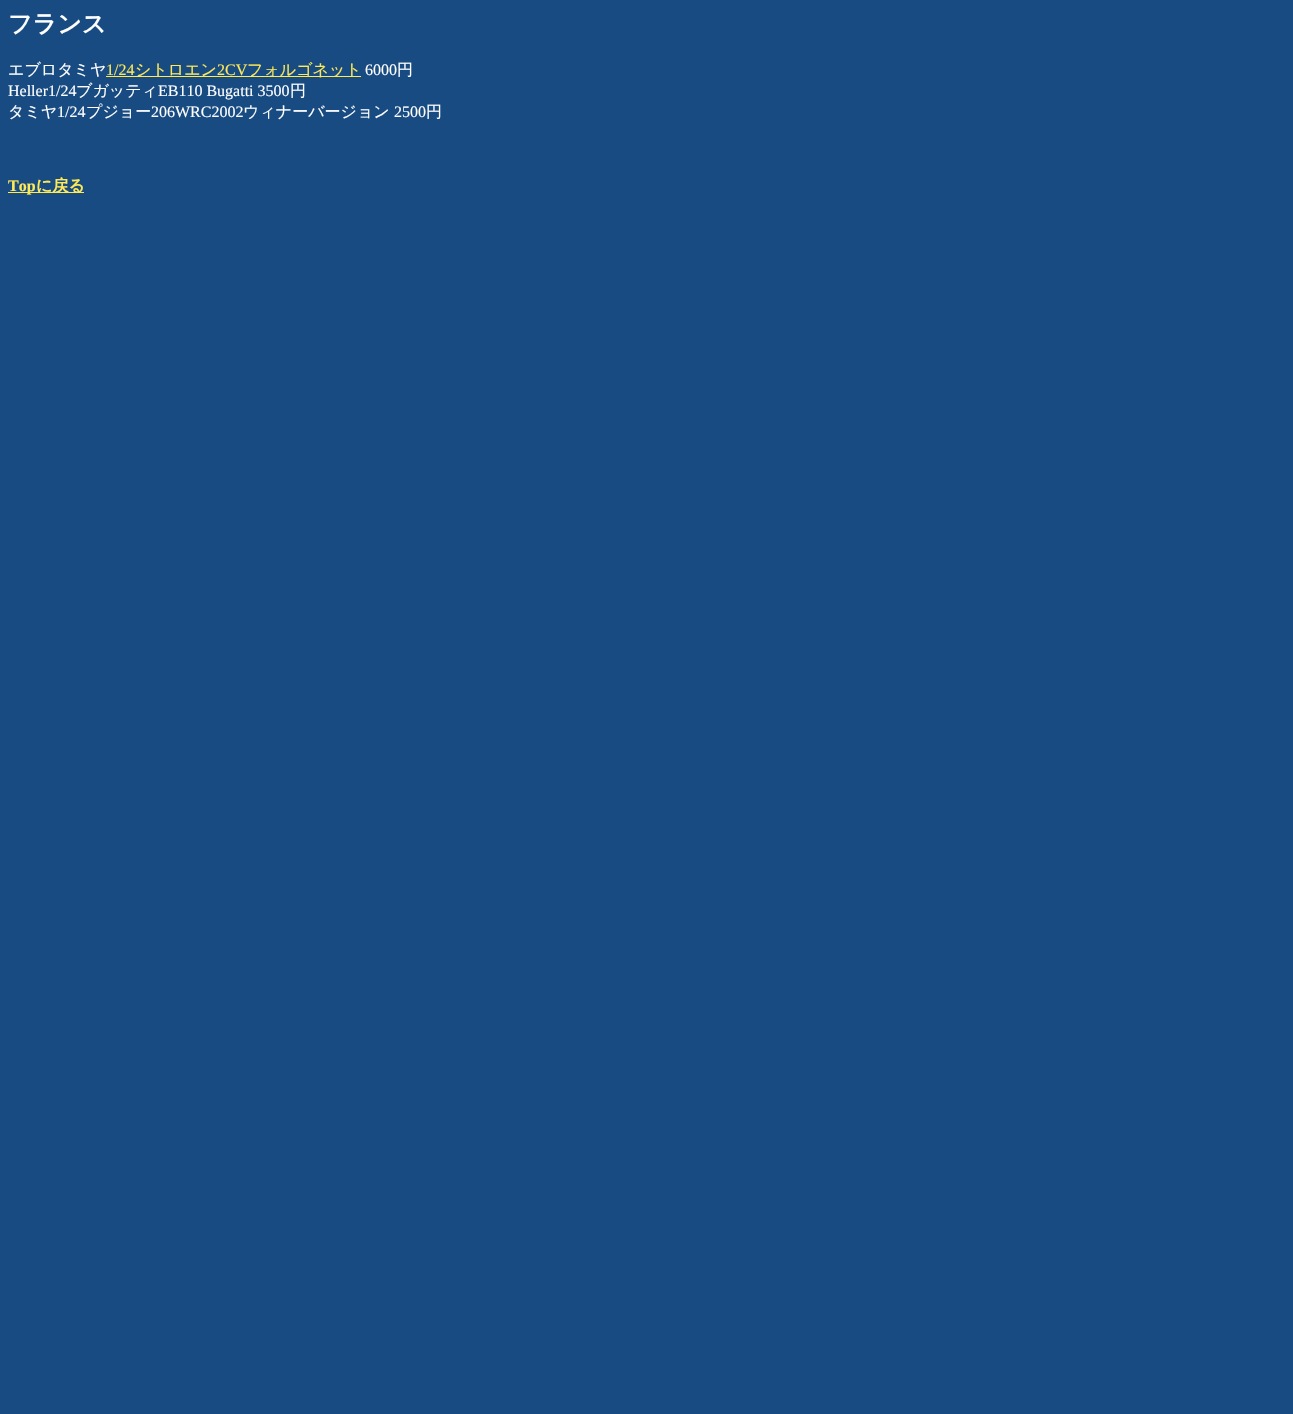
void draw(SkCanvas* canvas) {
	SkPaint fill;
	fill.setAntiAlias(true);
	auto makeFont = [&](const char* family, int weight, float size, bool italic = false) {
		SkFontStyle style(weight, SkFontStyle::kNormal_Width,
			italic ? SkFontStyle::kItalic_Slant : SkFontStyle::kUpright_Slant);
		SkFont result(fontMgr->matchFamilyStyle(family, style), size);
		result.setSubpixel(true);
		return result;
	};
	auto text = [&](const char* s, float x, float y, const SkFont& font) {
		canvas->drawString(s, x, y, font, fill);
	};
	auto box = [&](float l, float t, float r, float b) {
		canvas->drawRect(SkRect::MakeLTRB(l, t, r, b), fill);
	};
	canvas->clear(0xFF184B81);
	fill.setColor(0xFFFFE957);
	box(106, 76, 361, 77);
	box(8, 192, 84, 193);
	auto font1 = makeFont("WenQuanYi Zen Hei", 700, 24);
	fill.setColor(0xFFFFFFFF);
	text("フランス", 8, 32, font1);
	auto font2 = makeFont("WenQuanYi Zen Hei", 500, 16);
	text("エブロタミヤ", 8, 75, font2);
	auto font3 = makeFont("Liberation Serif", 400, 16);
	fill.setColor(0xFFFFE957);
	text("1/24", 106, 75, font3);
	text("シトロエン", 135, 75, font2);
	text("2CV", 217, 75, font3);
	text("フォルゴネット", 247, 75, font2);
	fill.setColor(0xFFFFFFFF);
	text("6000", 365, 75, font3);
	text("円", 397, 75, font2);
	text("Heller1/24", 8, 96, font3);
	text("ブガッティ", 76, 96, font2);
	text("EB110 Bugatti 3500", 158, 96, font3);
	text("円", 290, 96, font2);
	text("タミヤ", 8, 117, font2);
	text("1/24", 57, 117, font3);
	text("プジョー", 86, 117, font2);
	text("206WRC2002", 151, 117, font3);
	text("ウィナーバージョン", 243, 117, font2);
	text("2500", 394, 117, font3);
	text("円", 426, 117, font2);
	auto font4 = makeFont("Liberation Serif", 700, 16);
	fill.setColor(0xFFFFE957);
	text("Top", 8, 191, font4);
	auto font5 = makeFont("WenQuanYi Zen Hei", 700, 16);
	text("に戻る", 36, 191, font5);
}
